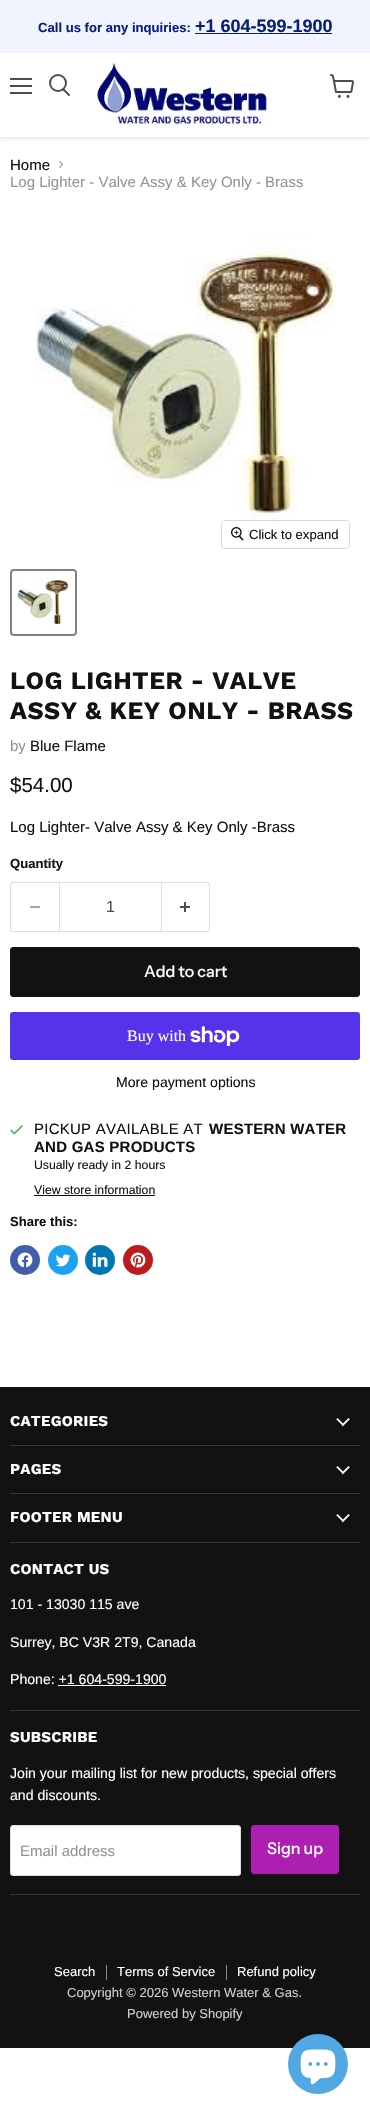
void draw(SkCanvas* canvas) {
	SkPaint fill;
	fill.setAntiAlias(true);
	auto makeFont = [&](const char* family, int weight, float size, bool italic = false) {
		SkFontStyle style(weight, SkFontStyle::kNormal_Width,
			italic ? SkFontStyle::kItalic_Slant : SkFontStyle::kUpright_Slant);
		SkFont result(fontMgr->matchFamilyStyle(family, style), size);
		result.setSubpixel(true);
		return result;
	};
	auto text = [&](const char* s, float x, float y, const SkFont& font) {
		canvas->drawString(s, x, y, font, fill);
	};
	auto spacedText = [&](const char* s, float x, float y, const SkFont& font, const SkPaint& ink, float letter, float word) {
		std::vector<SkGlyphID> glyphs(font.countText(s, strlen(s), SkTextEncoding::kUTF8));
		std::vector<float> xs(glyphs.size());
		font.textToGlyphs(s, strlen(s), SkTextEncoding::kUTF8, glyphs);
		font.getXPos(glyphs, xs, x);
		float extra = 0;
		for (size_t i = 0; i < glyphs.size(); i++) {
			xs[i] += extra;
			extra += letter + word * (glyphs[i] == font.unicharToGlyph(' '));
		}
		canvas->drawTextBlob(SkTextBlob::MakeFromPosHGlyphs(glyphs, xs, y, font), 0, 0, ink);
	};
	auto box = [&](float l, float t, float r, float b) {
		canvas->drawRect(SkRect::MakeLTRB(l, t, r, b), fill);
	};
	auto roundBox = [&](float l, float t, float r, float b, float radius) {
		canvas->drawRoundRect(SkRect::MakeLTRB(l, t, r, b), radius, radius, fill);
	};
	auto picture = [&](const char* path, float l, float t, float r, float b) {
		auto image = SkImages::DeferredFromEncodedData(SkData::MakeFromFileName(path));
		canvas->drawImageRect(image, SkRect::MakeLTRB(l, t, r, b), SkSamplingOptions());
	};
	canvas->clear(0xFFFFFFFF);
	canvas->save();
	canvas->clipRect(SkRect::MakeLTRB(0, 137, 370, 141));
	fill.setColor(0x40808080);
	fill.setMaskFilter(SkMaskFilter::MakeBlur(kNormal_SkBlurStyle, 2));
	canvas->drawRect(SkRect::MakeLTRB(0, 54, 370, 138), fill);
	fill.setMaskFilter(nullptr);
	canvas->restore();
	fill.setColor(0xFFF1F3FF);
	box(0, 0, 370, 53);
	fill.setColor(0xFF041F76);
	box(195, 33, 332, 34);
	fill.setColor(0xFF4D4D4D);
	box(10, 78, 32, 80);
	box(10, 85, 32, 87);
	box(10, 92, 32, 94);
	fill.setStyle(SkPaint::kStroke_Style);
	fill.setStrokeWidth(2);
	fill.setStrokeCap(SkPaint::kRound_Cap);
	canvas->drawPath(SkPathBuilder().moveTo(69, 95).lineTo(63.5f, 89.5f).detach(), fill);
	fill.setStrokeCap(SkPaint::kButt_Cap);
	canvas->drawCircle(58, 83, 8, fill);
	picture("image0.png", 97, 63, 267, 126);
	picture("image1.png", 330, 74, 354, 98);
	picture("image2.png", 59, 160, 64, 168);
	picture("image3.png", 35, 234, 336, 532);
	fill.setStrokeWidth(1);
	fill.setColor(0x26000000);
	canvas->drawRoundRect(SkRect::MakeLTRB(221.5f, 520.5f, 349.5f, 548.5f), 3.5f, 3.5f, fill);
	fill.setStyle(SkPaint::kFill_Style);
	fill.setColor(0xE6FFFFFF);
	roundBox(222, 521, 349, 548, 3);
	picture("image4.png", 231, 527, 244, 541);
	fill.setStyle(SkPaint::kStroke_Style);
	fill.setStrokeWidth(2);
	fill.setColor(0xFF818181);
	canvas->drawRoundRect(SkRect::MakeLTRB(11, 570, 76, 635), 3, 3, fill);
	picture("image5.png", 17, 578, 70, 626);
	fill.setStyle(SkPaint::kFill_Style);
	fill.setColor(0xFFDDDDDD);
	canvas->drawPath(SkPathBuilder(SkPathFillType::kEvenOdd).moveTo(13, 882).lineTo(59, 882).lineTo(59, 932).lineTo(13, 932).cubicTo(11, 932, 10, 931, 10, 929).lineTo(10, 885).cubicTo(10, 883, 11, 882, 13, 882).close().moveTo(13, 883).lineTo(59, 883).lineTo(59, 931).lineTo(13, 931).cubicTo(12, 931, 11, 930, 11, 929).lineTo(11, 885).cubicTo(11, 884, 12, 883, 13, 883).close().detach(), fill);
	fill.setColor(0xFFA6A6A6);
	box(30, 906, 40, 908);
	fill.setStyle(SkPaint::kStroke_Style);
	fill.setStrokeWidth(1);
	fill.setColor(0xFFDDDDDD);
	canvas->drawRect(SkRect::MakeLTRB(59.5f, 882.5f, 161.5f, 931.5f), fill);
	fill.setStyle(SkPaint::kFill_Style);
	canvas->drawPath(SkPathBuilder(SkPathFillType::kEvenOdd).moveTo(162, 882).lineTo(207, 882).cubicTo(209, 882, 210, 883, 210, 885).lineTo(210, 929).cubicTo(210, 931, 209, 932, 207, 932).lineTo(162, 932).close().moveTo(162, 883).lineTo(207, 883).cubicTo(208, 883, 209, 884, 209, 885).lineTo(209, 929).cubicTo(209, 930, 208, 931, 207, 931).lineTo(162, 931).close().detach(), fill);
	picture("image6.png", 180, 902, 190, 912);
	fill.setColor(0xFF121212);
	canvas->drawRoundRect(SkRect::MakeLTRB(10.5f, 947.5f, 359.5f, 996.5f), 2.5f, 2.5f, fill);
	fill.setStyle(SkPaint::kStroke_Style);
	canvas->drawRoundRect(SkRect::MakeLTRB(10.5f, 947.5f, 359.5f, 996.5f), 2.5f, 2.5f, fill);
	fill.setStyle(SkPaint::kFill_Style);
	fill.setColor(0xFF5433EB);
	roundBox(10, 1012, 360, 1060, 3);
	picture("image7.png", 190, 1026, 240, 1046);
	picture("image8.png", 10, 1125, 23, 1135);
	fill.setColor(0xFF121212);
	box(34, 1195, 155, 1196);
	fill.setColor(0xFF425DAB);
	canvas->drawCircle(25, 1260, 15, fill);
	picture("image9.png", 17, 1252, 33, 1268);
	fill.setColor(0xFF1DA1F2);
	canvas->drawCircle(63, 1260, 15, fill);
	picture("image10.png", 55, 1254, 71, 1267);
	fill.setColor(0xFF0077B5);
	canvas->drawCircle(100, 1260, 15, fill);
	picture("image11.png", 92, 1252, 108, 1267);
	fill.setColor(0xFFBD1C1C);
	canvas->drawCircle(138, 1260, 15, fill);
	picture("image12.png", 130, 1252, 146, 1268);
	fill.setColor(0xFF121212);
	box(0, 1387, 370, 2048);
	fill.setColor(0xFF363636);
	box(10, 1445, 360, 1446);
	picture("image13.png", 336, 1418, 350, 1426);
	box(10, 1493, 360, 1494);
	picture("image13.png", 336, 1466, 350, 1474);
	box(10, 1542, 360, 1543);
	picture("image13.png", 336, 1514, 350, 1522);
	box(10, 1710, 360, 1711);
	fill.setColor(0xFFFFFFFF);
	box(58, 1685, 166, 1686);
	fill.setColor(0xFF363636);
	box(10, 1894, 360, 1895);
	fill.setColor(0xFFFFFFFF);
	canvas->drawRoundRect(SkRect::MakeLTRB(10.5f, 1825.5f, 240.5f, 1875.5f), 2.5f, 2.5f, fill);
	fill.setStyle(SkPaint::kStroke_Style);
	fill.setColor(0xFFDDDDDD);
	canvas->drawRoundRect(SkRect::MakeLTRB(10.5f, 1825.5f, 240.5f, 1875.5f), 2.5f, 2.5f, fill);
	fill.setStyle(SkPaint::kFill_Style);
	fill.setColor(0xFFAD1FB1);
	canvas->drawRoundRect(SkRect::MakeLTRB(251.5f, 1825.5f, 338.5f, 1873.5f), 2.5f, 2.5f, fill);
	fill.setStyle(SkPaint::kStroke_Style);
	canvas->drawRoundRect(SkRect::MakeLTRB(251.5f, 1825.5f, 338.5f, 1873.5f), 2.5f, 2.5f, fill);
	fill.setStyle(SkPaint::kFill_Style);
	fill.setColor(0xFF898989);
	box(106, 1965, 107, 1980);
	box(226, 1965, 227, 1980);
	fill.setColor(0xFF51A8E2);
	canvas->drawCircle(318, 2064, 30, fill);
	picture("image14.png", 300, 2049, 336, 2085);
	auto font1 = makeFont("Liberation Sans", 700, 13.1f);
	fill.setColor(0xFF041F76);
	text("Call us for any inquiries:", 38, 32, font1);
	auto font2 = makeFont("Liberation Sans", 700, 18);
	text("+1 604-599-1900", 195, 32, font2);
	auto font3 = makeFont("Liberation Sans", 400, 15);
	fill.setColor(0xFF121212);
	text("Home", 10, 170, font3);
	fill.setColor(0xFF949494);
	text("Log Lighter - Valve Assy & Key Only - Brass", 10, 187, font3);
	auto font4 = makeFont("Liberation Sans", 400, 13.1f);
	fill.setColor(0xFF121212);
	text("Click to expand", 249, 539, font4);
	auto font5 = makeFont("Work Sans", 700, 25);
	spacedText("LOG LIGHTER - VALVE", 10, 689, font5, fill, 0.5f, 0);
	spacedText("ASSY & KEY ONLY - BRASS", 10, 719, font5, fill, 0.5f, 0);
	fill.setColor(0xFF949494);
	text("by", 10, 751, font3);
	fill.setColor(0xFF121212);
	text("Blue Flame", 30, 751, font3);
	auto font6 = makeFont("Liberation Sans", 400, 20.5f);
	text("$54.00", 10, 792, font6);
	text("Log Lighter- Valve Assy & Key Only -Brass", 10, 832, font3);
	text("Quantity", 10, 868, font1);
	auto font7 = makeFont("Liberation Sans", 400, 16);
	fill.setColor(0xFF4D4D4D);
	text("1", 106, 912, font7);
	auto font8 = makeFont("Instrument Sans", 500, 16);
	fill.setColor(0xFFFFFFFF);
	text("Add to cart", 144, 977, font8);
	auto font9 = makeFont("Liberation Serif", 400, 16);
	text("Buy with", 127, 1041, font9);
	auto font10 = makeFont("Liberation Sans", 400, 14.1f);
	fill.setColor(0xFF121212);
	text("More payment options", 116, 1087, font10);
	spacedText("PICKUP AVAILABLE AT", 34, 1134, font3, fill, 0.25f, 0);
	auto font11 = makeFont("Liberation Sans", 700, 15);
	spacedText("WESTERN WATER", 209, 1134, font11, fill, 0.25f, 0);
	spacedText("AND GAS PRODUCTS", 34, 1152, font11, fill, 0.25f, 0);
	auto font12 = makeFont("Liberation Sans", 400, 12.25f);
	text("Usually ready in 2 hours", 34, 1169, font12);
	text("View store information", 34, 1194, font12);
	text("Share this:", 10, 1226, font1);
	auto font13 = makeFont("Work Sans", 700, 15);
	fill.setColor(0xFFFFFFFF);
	spacedText("CATEGORIES", 10, 1426, font13, fill, 0.25f, 0);
	spacedText("PAGES", 10, 1474, font13, fill, 0.25f, 0);
	spacedText("FOOTER MENU", 10, 1522, font13, fill, 0.25f, 0);
	spacedText("CONTACT US", 10, 1574, font13, fill, 0.25f, 0);
	text("101 - 13030 115 ave", 10, 1609, font10);
	text("Surrey, BC V3R 2T9, Canada", 10, 1647, font10);
	text("Phone: +1 604-599-1900", 10, 1684, font10);
	spacedText("SUBSCRIBE", 10, 1742, font13, fill, 0.25f, 0);
	text("Join your mailing list for new products, special offers", 10, 1778, font10);
	text("and discounts.", 10, 1800, font10);
	fill.setColor(0xFF949494);
	text("Email address", 20, 1856, font3);
	fill.setColor(0xFFFFFFFF);
	text("Sign up", 267, 1854, font8);
	auto font14 = makeFont("Liberation Sans", 400, 13);
	text("Search", 54, 1976, font14);
	text("Terms of Service", 117, 1976, font14);
	text("Refund policy", 237, 1976, font14);
	fill.setColor(0xFFD0D0D0);
	text("Copyright © 2026 Western Water & Gas.", 67, 1997, font14);
	text("Powered by Shopify", 127, 2018, font14);
}
